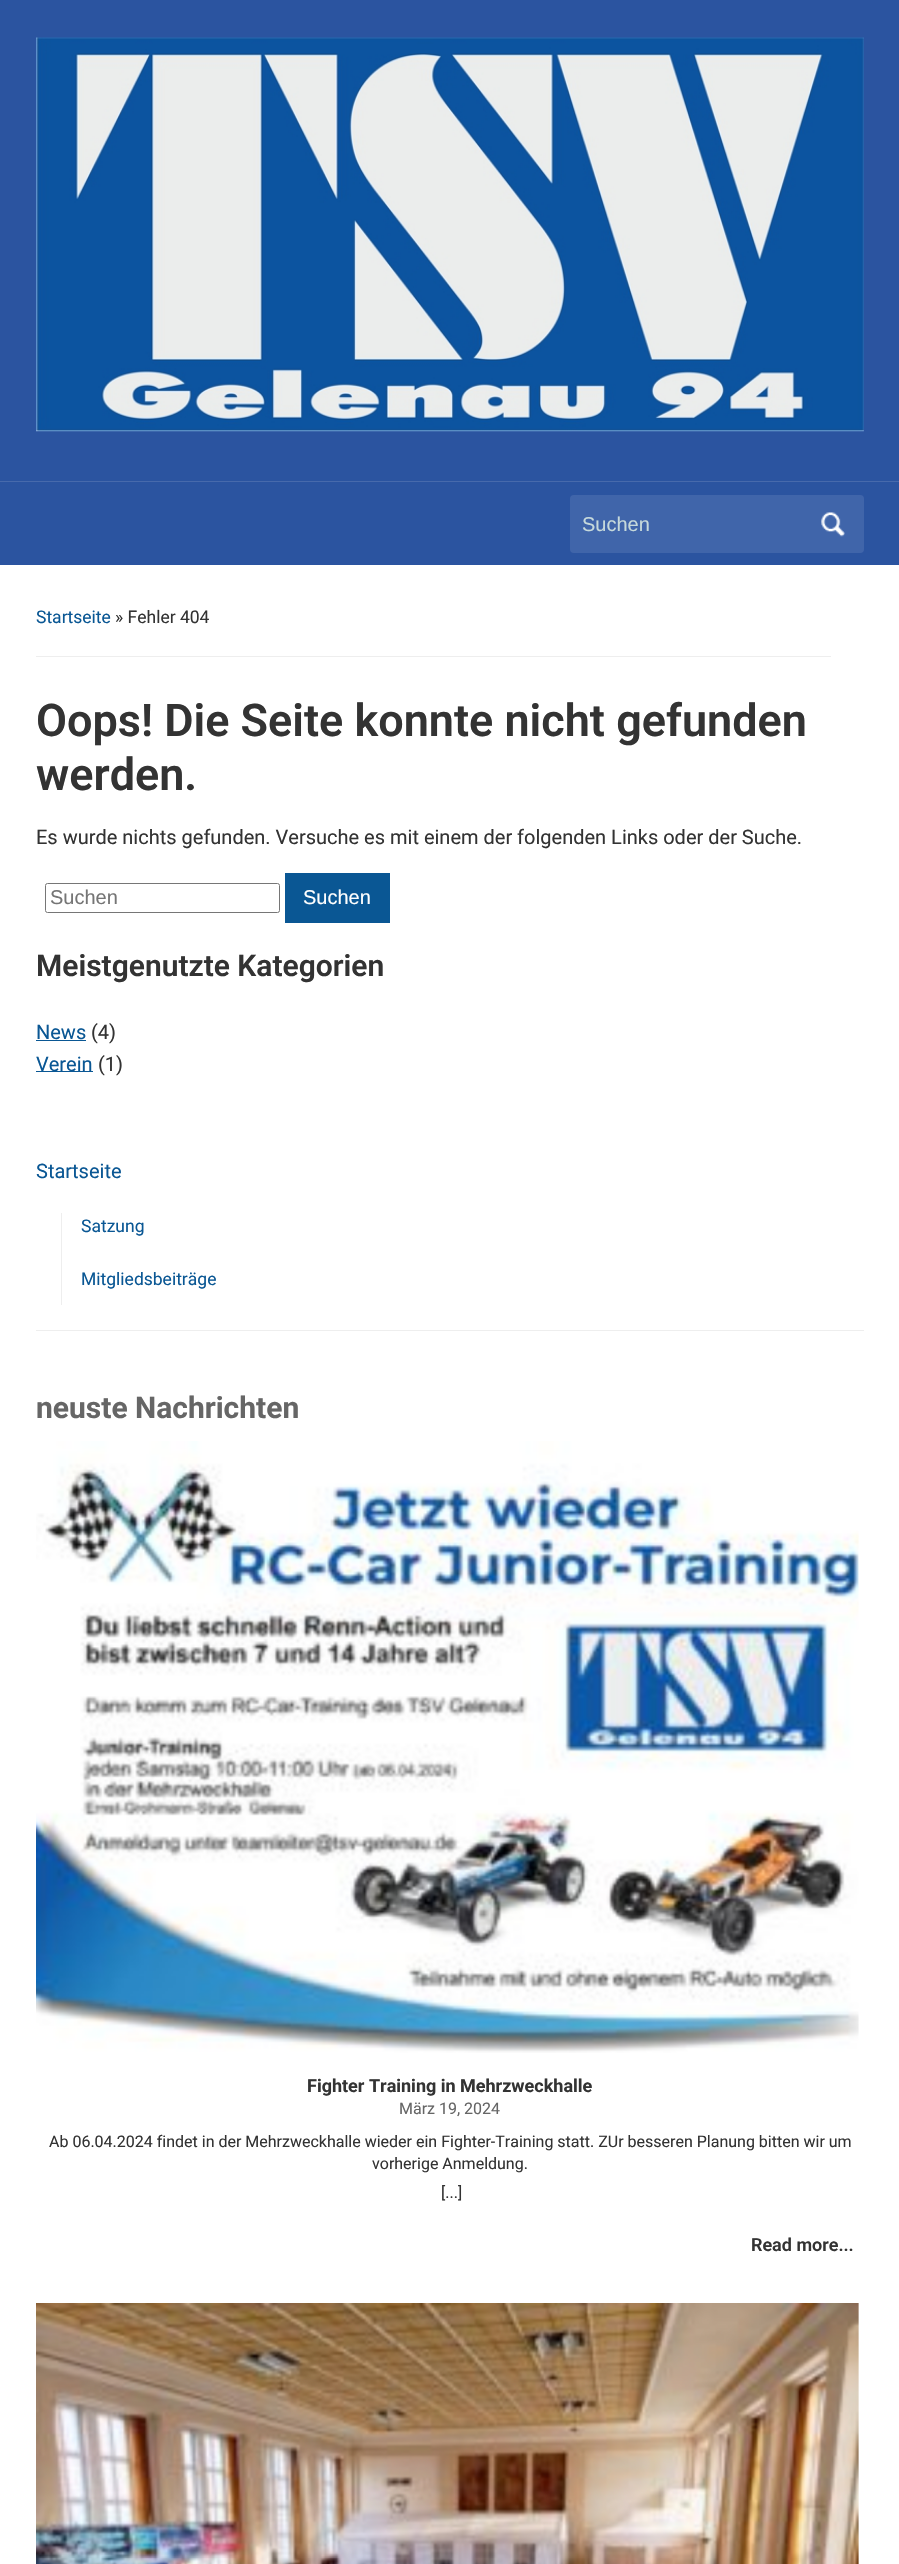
void draw(SkCanvas* canvas) {
	SkPaint fill;
	fill.setAntiAlias(true);
	auto makeFont = [&](const char* family, int weight, float size, bool italic = false) {
		SkFontStyle style(weight, SkFontStyle::kNormal_Width,
			italic ? SkFontStyle::kItalic_Slant : SkFontStyle::kUpright_Slant);
		SkFont result(fontMgr->matchFamilyStyle(family, style), size);
		result.setSubpixel(true);
		return result;
	};
	auto text = [&](const char* s, float x, float y, const SkFont& font) {
		canvas->drawString(s, x, y, font, fill);
	};
	auto box = [&](float l, float t, float r, float b) {
		canvas->drawRect(SkRect::MakeLTRB(l, t, r, b), fill);
	};
	auto roundBox = [&](float l, float t, float r, float b, float radius) {
		canvas->drawRoundRect(SkRect::MakeLTRB(l, t, r, b), radius, radius, fill);
	};
	auto picture = [&](const char* path, float l, float t, float r, float b) {
		auto image = SkImages::DeferredFromEncodedData(SkData::MakeFromFileName(path));
		canvas->drawImageRect(image, SkRect::MakeLTRB(l, t, r, b), SkSamplingOptions());
	};
	canvas->clear(0xFFFFFFFF);
	fill.setColor(0xFF2B54A0);
	box(0, 0, 899, 565);
	picture("image0.png", 36, 37, 864, 432);
	fill.setColor(0xFF476AAC);
	box(0, 481, 899, 482);
	fill.setColor(0xFF4065AA);
	roundBox(570, 495, 864, 553, 4);
	picture("image1.png", 821, 512, 845, 537);
	fill.setColor(0xFFEEEEEE);
	box(36, 656, 831, 657);
	fill.setStyle(SkPaint::kStroke_Style);
	fill.setStrokeWidth(1);
	fill.setColor(0xFF767676);
	canvas->drawRoundRect(SkRect::MakeLTRB(45.5f, 883.5f, 279.5f, 912.5f), 2, 2, fill);
	fill.setStyle(SkPaint::kFill_Style);
	fill.setColor(0xFF0A5794);
	box(285, 873, 390, 923);
	box(36, 1040, 86, 1041);
	box(36, 1071, 93, 1072);
	fill.setColor(0xFFEEEEEE);
	box(36, 1330, 864, 1331);
	box(61, 1213, 62, 1305);
	picture("image2.png", 36, 1441, 859, 2053);
	picture("image3.png", 36, 2303, 859, 2564);
	auto font1 = makeFont("Liberation Sans", 400, 20);
	fill.setColor(0xFFC6D9DB);
	text("Suchen", 582, 531, font1);
	auto font2 = makeFont("Roboto", 400, 17.5f);
	fill.setColor(0xFF0A5794);
	text("Startseite", 36, 623, font2);
	fill.setColor(0xFF333333);
	text("» Fehler 404", 115, 623, font2);
	auto font3 = makeFont("Roboto", 600, 45);
	text("Oops! Die Seite konnte nicht gefunden", 36, 736, font3);
	text("werden.", 36, 790, font3);
	auto font4 = makeFont("Roboto", 400, 20);
	text("Es wurde nichts gefunden. Versuche es mit einem der folgenden Links oder der Suche.", 36, 844, font4);
	fill.setColor(0xFF757575);
	text("Suchen", 50, 904, font1);
	fill.setColor(0xFFFFFFFF);
	text("Suchen", 303, 904, font1);
	auto font5 = makeFont("Roboto", 600, 30);
	fill.setColor(0xFF333333);
	text("Meistgenutzte Kategorien", 36, 976, font5);
	fill.setColor(0xFF0A5794);
	text("News", 36, 1039, font4);
	fill.setColor(0xFF333333);
	text("(4)", 91, 1039, font4);
	fill.setColor(0xFF0A5794);
	text("Verein", 36, 1071, font4);
	fill.setColor(0xFF333333);
	text("(1)", 98, 1071, font4);
	fill.setColor(0xFF0A5794);
	text("Startseite", 36, 1178, font4);
	text("Satzung", 81, 1232, font2);
	text("Mitgliedsbeiträge", 81, 1285, font2);
	auto font6 = makeFont("Roboto", 700, 30);
	fill.setColor(0xFF666666);
	text("neuste Nachrichten", 36, 1418, font6);
	auto font7 = makeFont("Roboto", 700, 18);
	fill.setColor(0xFF333333);
	text("Fighter Training in Mehrzweckhalle", 307, 2092, font7);
	auto font8 = makeFont("Roboto", 400, 16);
	fill.setColor(0xFF666666);
	text("März 19, 2024", 399, 2114, font8);
	fill.setColor(0xFF333333);
	text("Ab 06.04.2024 findet in der Mehrzweckhalle wieder ein Fighter-Training statt. ZUr besseren Planung bitten wir um", 49, 2147, font8);
	text("vorherige Anmeldung.", 372, 2169, font8);
	text("[...]", 441, 2198, font8);
	auto font9 = makeFont("Roboto", 600, 18);
	text("Read more...", 751, 2251, font9);
}
